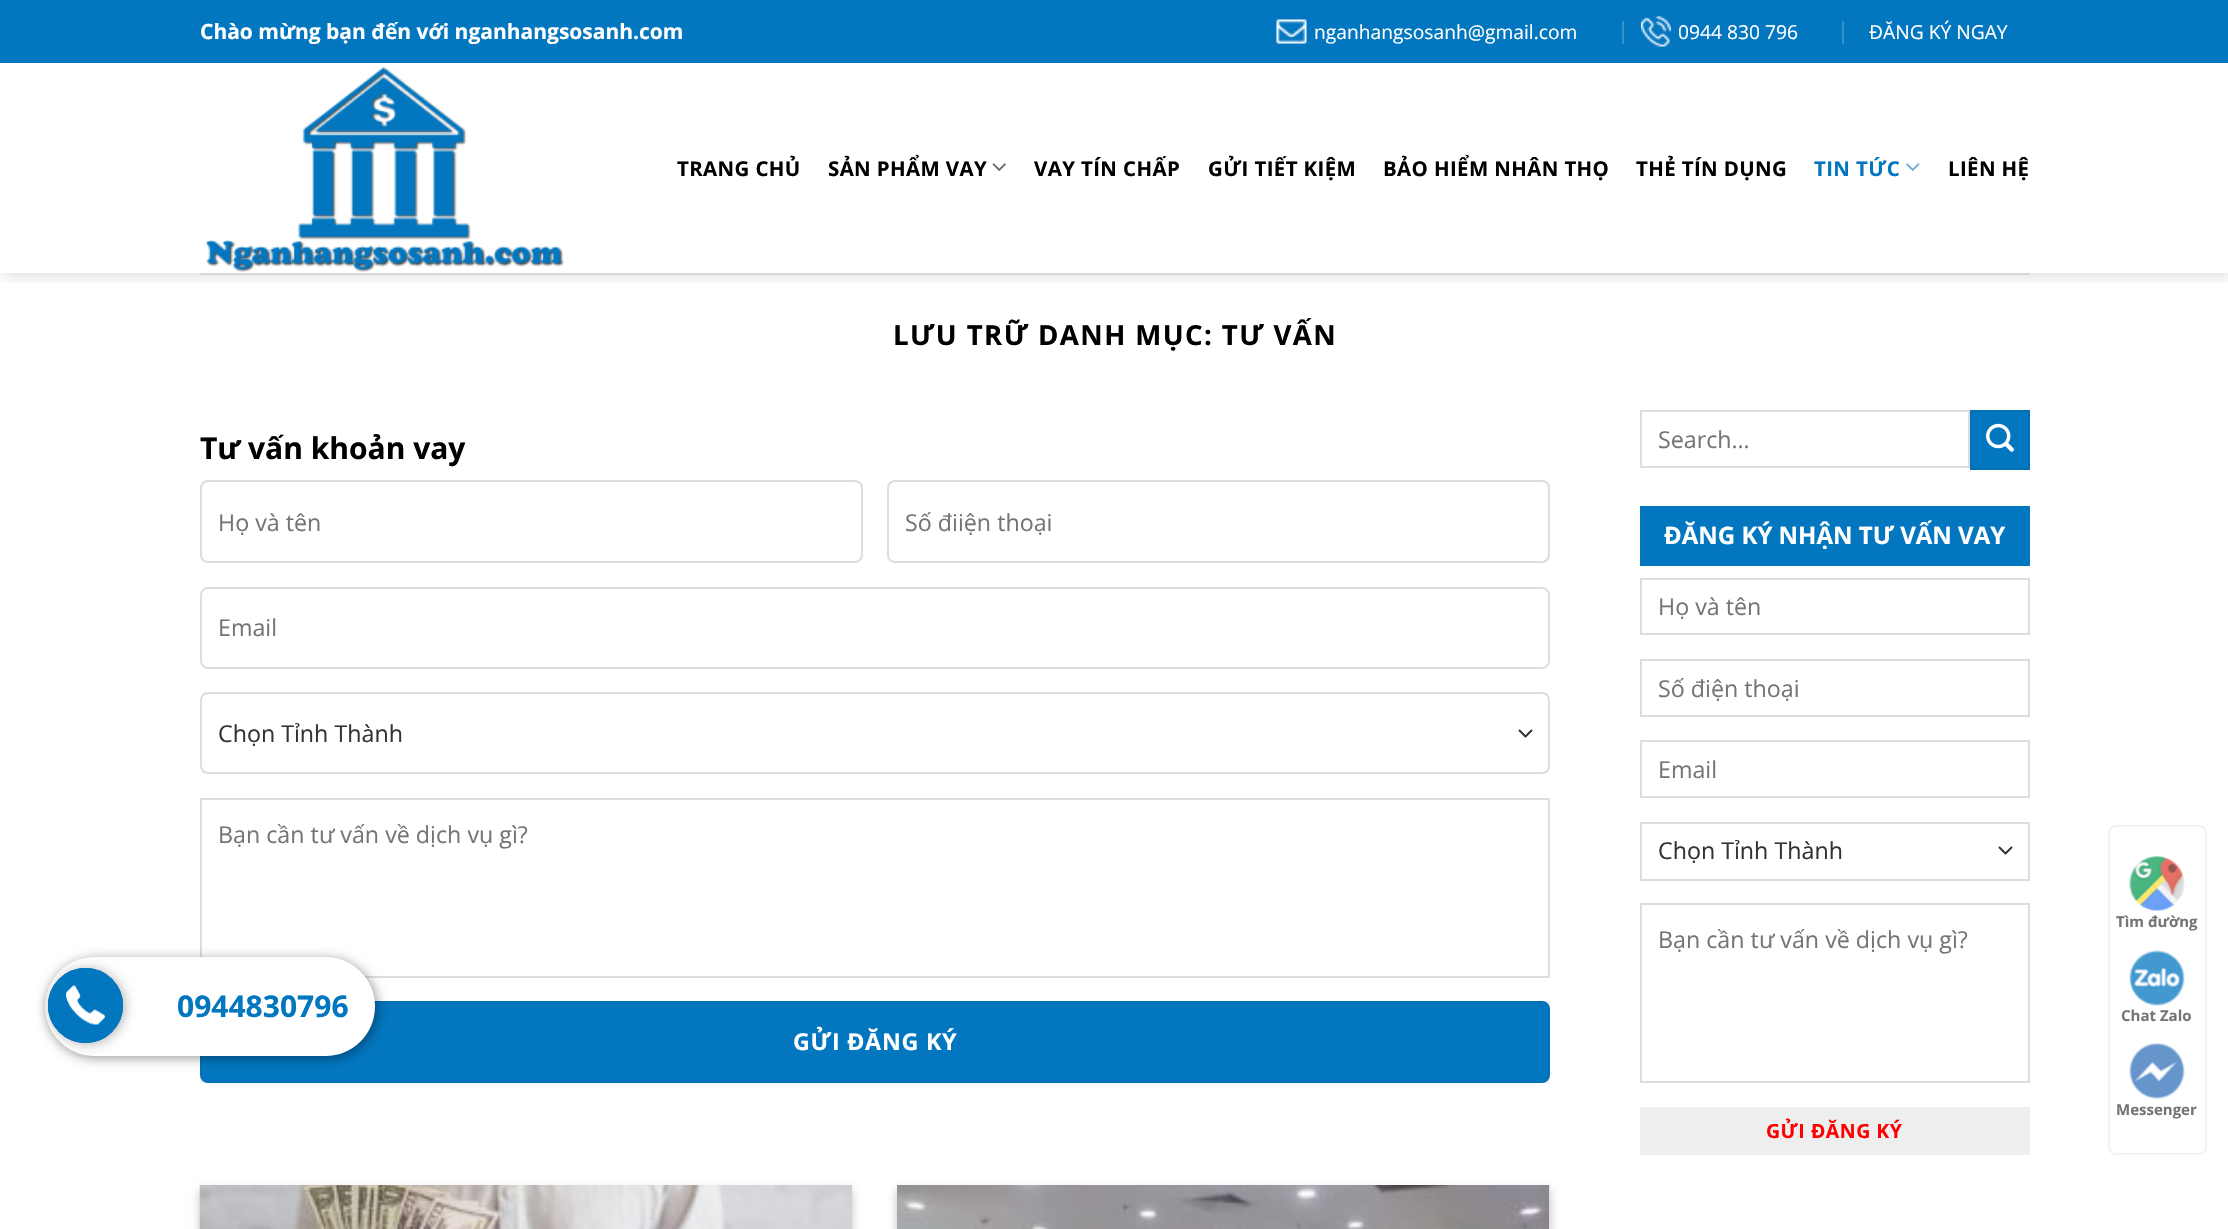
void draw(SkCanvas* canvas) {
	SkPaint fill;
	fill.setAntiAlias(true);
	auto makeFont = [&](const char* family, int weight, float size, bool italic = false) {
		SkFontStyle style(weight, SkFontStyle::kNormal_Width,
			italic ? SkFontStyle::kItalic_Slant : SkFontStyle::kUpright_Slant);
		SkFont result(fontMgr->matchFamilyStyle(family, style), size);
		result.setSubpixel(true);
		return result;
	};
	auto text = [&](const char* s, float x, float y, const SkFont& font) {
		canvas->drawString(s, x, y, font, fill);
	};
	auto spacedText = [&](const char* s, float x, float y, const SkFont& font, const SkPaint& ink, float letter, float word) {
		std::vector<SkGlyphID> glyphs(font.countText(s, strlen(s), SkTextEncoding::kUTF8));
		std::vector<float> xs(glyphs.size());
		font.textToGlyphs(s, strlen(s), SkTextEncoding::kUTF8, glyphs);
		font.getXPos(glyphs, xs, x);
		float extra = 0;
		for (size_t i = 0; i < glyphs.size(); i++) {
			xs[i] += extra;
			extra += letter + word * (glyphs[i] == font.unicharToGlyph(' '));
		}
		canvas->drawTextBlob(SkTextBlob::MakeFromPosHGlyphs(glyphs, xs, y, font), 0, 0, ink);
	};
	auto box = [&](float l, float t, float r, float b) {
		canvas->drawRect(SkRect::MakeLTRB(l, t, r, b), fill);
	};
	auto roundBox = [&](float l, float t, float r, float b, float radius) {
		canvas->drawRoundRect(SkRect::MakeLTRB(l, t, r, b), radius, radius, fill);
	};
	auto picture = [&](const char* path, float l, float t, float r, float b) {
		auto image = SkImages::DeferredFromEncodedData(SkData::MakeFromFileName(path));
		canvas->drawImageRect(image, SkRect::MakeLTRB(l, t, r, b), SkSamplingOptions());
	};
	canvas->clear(0xFFFFFFFF);
	canvas->save();
	canvas->clipRect(SkRect::MakeLTRB(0, 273, 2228, 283));
	fill.setColor(0x26000000);
	fill.setMaskFilter(SkMaskFilter::MakeBlur(kNormal_SkBlurStyle, 7.5f));
	canvas->drawRect(SkRect::MakeLTRB(2, 2, 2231, 275), fill);
	fill.setMaskFilter(nullptr);
	canvas->restore();
	fill.setColor(0xFF0276BF);
	box(0, 0, 2228, 63);
	picture("image0.png", 1276, 19, 1307, 44);
	fill.setColor(0xFF3591CC);
	box(1622, 21, 1624, 44);
	picture("image1.png", 1641, 16, 1671, 47);
	box(1842, 21, 1844, 44);
	picture("image2.png", 205, 67, 564, 272);
	picture("image3.png", 992, 163, 1006, 171);
	picture("image4.png", 1906, 163, 1920, 171);
	fill.setColor(0xFFD8D8D8);
	box(200, 273, 2030, 275);
	fill.setStyle(SkPaint::kStroke_Style);
	fill.setStrokeWidth(2);
	fill.setColor(0xFFDDDDDD);
	canvas->drawRoundRect(SkRect::MakeLTRB(201, 481, 862, 562), 7, 7, fill);
	canvas->drawRoundRect(SkRect::MakeLTRB(888, 481, 1549, 562), 7, 7, fill);
	canvas->drawRoundRect(SkRect::MakeLTRB(201, 588, 1549, 668), 7, 7, fill);
	fill.setStrokeCap(SkPaint::kRound_Cap);
	fill.setStrokeJoin(SkPaint::kRound_Join);
	fill.setColor(0xFF333333);
	canvas->drawPath(SkPathBuilder().moveTo(1519.5f, 730.5f).lineTo(1525.5f, 736.5f).lineTo(1531.5f, 730.5f).detach(), fill);
	fill.setStrokeCap(SkPaint::kButt_Cap);
	fill.setStrokeJoin(SkPaint::kMiter_Join);
	fill.setColor(0xFFDDDDDD);
	canvas->drawRoundRect(SkRect::MakeLTRB(201, 693, 1549, 773), 7, 7, fill);
	canvas->drawRect(SkRect::MakeLTRB(201, 799, 1549, 977), fill);
	fill.setStyle(SkPaint::kFill_Style);
	fill.setColor(0xFF0276BF);
	roundBox(200, 1001, 1550, 1083, 8);
	fill.setStyle(SkPaint::kStroke_Style);
	fill.setColor(0x0D000000);
	canvas->drawRect(SkRect::MakeLTRB(201, 1002, 1549, 1082), fill);
	fill.setStyle(SkPaint::kFill_Style);
	fill.setColor(0x3B000000);
	fill.setMaskFilter(SkMaskFilter::MakeBlur(kNormal_SkBlurStyle, 4.5f));
	canvas->drawRect(SkRect::MakeLTRB(200, 1190, 852, 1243), fill);
	fill.setMaskFilter(nullptr);
	picture("image5.png", 199, 1185, 852, 1229);
	fill.setMaskFilter(SkMaskFilter::MakeBlur(kNormal_SkBlurStyle, 4.5f));
	canvas->drawRect(SkRect::MakeLTRB(897, 1190, 1550, 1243), fill);
	fill.setMaskFilter(nullptr);
	fill.setColor(0xFFFFFFFF);
	box(1549, 1185, 1550, 1229);
	picture("image6.png", 897, 1185, 1550, 1229);
	fill.setStyle(SkPaint::kStroke_Style);
	fill.setColor(0xFFDDDDDD);
	canvas->drawRect(SkRect::MakeLTRB(1641, 411, 1969, 467), fill);
	fill.setStyle(SkPaint::kFill_Style);
	fill.setColor(0xFF0276BF);
	canvas->drawRect(SkRect::MakeLTRB(1971, 411, 2029, 469), fill);
	fill.setStyle(SkPaint::kStroke_Style);
	fill.setColor(0xFF0270B5);
	canvas->drawRect(SkRect::MakeLTRB(1971, 411, 2029, 469), fill);
	picture("image7.png", 1986, 423, 2014, 452);
	fill.setStyle(SkPaint::kFill_Style);
	fill.setColor(0xFF0276BF);
	box(1640, 506, 2030, 566);
	fill.setStyle(SkPaint::kStroke_Style);
	fill.setColor(0xFFDDDDDD);
	canvas->drawRect(SkRect::MakeLTRB(1641, 579, 2029, 634), fill);
	canvas->drawRect(SkRect::MakeLTRB(1641, 660, 2029, 716), fill);
	canvas->drawRect(SkRect::MakeLTRB(1641, 741, 2029, 797), fill);
	fill.setStrokeCap(SkPaint::kRound_Cap);
	fill.setStrokeJoin(SkPaint::kRound_Join);
	fill.setColor(0xFF333333);
	canvas->drawPath(SkPathBuilder().moveTo(1999.5f, 847.5f).lineTo(2005.5f, 853.5f).lineTo(2011.5f, 847.5f).detach(), fill);
	fill.setStrokeCap(SkPaint::kButt_Cap);
	fill.setStrokeJoin(SkPaint::kMiter_Join);
	fill.setColor(0xFFDDDDDD);
	canvas->drawRect(SkRect::MakeLTRB(1641, 823, 2029, 880), fill);
	canvas->drawRect(SkRect::MakeLTRB(1641, 904, 2029, 1082), fill);
	fill.setStyle(SkPaint::kFill_Style);
	fill.setColor(0xFFEEEEEE);
	box(1640, 1107, 2030, 1155);
	fill.setColor(0x66000000);
	fill.setMaskFilter(SkMaskFilter::MakeBlur(kNormal_SkBlurStyle, 6));
	canvas->drawRoundRect(SkRect::MakeLTRB(47, 959, 377, 1058), 49.5f, 49.5f, fill);
	fill.setMaskFilter(nullptr);
	fill.setColor(0xFFFFFFFF);
	roundBox(45, 957, 375, 1056, 49.5f);
	fill.setColor(0x4D000000);
	fill.setMaskFilter(SkMaskFilter::MakeBlur(kNormal_SkBlurStyle, 6));
	canvas->drawRoundRect(SkRect::MakeLTRB(50, 969, 125, 1044), 37.5f, 37.5f, fill);
	fill.setMaskFilter(nullptr);
	fill.setColor(0xFF0276BF);
	canvas->drawCircle(85.5f, 1005.5f, 37.5f, fill);
	picture("image8.png", 66, 985, 105, 1025);
	fill.setStyle(SkPaint::kStroke_Style);
	canvas->drawCircle(85.5f, 1005.5f, 36.5f, fill);
	canvas->drawCircle(85.5f, 1005.5f, 36.5f, fill);
	fill.setColor(0xFFF2F2F2);
	canvas->drawRoundRect(SkRect::MakeLTRB(2109, 826, 2206, 1154), 7, 7, fill);
	picture("image9.png", 2129, 856, 2185, 911);
	picture("image10.png", 2129, 950, 2185, 1006);
	picture("image11.png", 2129, 1043, 2185, 1099);
	auto font1 = makeFont("Open Sans", 700, 21);
	fill.setStyle(SkPaint::kFill_Style);
	fill.setColor(0xFFFFFFFF);
	text("Chào mừng bạn đến với nganhangsosanh.com", 200, 39, font1);
	auto font2 = makeFont("Open Sans", 400, 19.25f);
	text("nganhangsosanh@gmail.com", 1314, 39, font2);
	text("0944 830 796", 1678, 39, font2);
	text("ĐĂNG KÝ NGAY", 1869, 39, font2);
	auto font3 = makeFont("Open Sans", 700, 20.4f);
	fill.setColor(0xFF000000);
	spacedText("TRANG CHỦ", 677, 176, font3, fill, 0.4f, 0);
	spacedText("SẢN PHẨM VAY", 828, 176, font3, fill, 0.4f, 0);
	spacedText("VAY TÍN CHẤP", 1034, 176, font3, fill, 0.4f, 0);
	spacedText("GỬI TIẾT KIỆM", 1208, 176, font3, fill, 0.4f, 0);
	spacedText("BẢO HIỂM NHÂN THỌ", 1383, 176, font3, fill, 0.4f, 0);
	spacedText("THẺ TÍN DỤNG", 1636, 176, font3, fill, 0.4f, 0);
	fill.setColor(0xFF0276BF);
	spacedText("TIN TỨC", 1814, 176, font3, fill, 0.4f, 0);
	fill.setColor(0xFF000000);
	spacedText("LIÊN HỆ", 1948, 176, font3, fill, 0.4f, 0);
	auto font4 = makeFont("Open Sans", 700, 27.6f);
	spacedText("LƯU TRỮ DANH MỤC: TƯ VẤN", 893, 345, font4, fill, 1.4f, 0);
	auto font5 = makeFont("Open Sans", 700, 30);
	text("Tư vấn khoản vay", 200, 459, font5);
	auto font6 = makeFont("Open Sans", 400, 23.25f);
	fill.setColor(0xFF757575);
	text("Họ và tên", 218, 531, font6);
	text("Số điiện thoại", 905, 531, font6);
	text("Email", 218, 636, font6);
	fill.setColor(0xFF333333);
	text("Chọn Tỉnh Thành", 218, 742, font6);
	fill.setColor(0xFF757575);
	text("Bạn cần tư vấn về dịch vụ gì?", 218, 843, font6);
	auto font7 = makeFont("Open Sans", 700, 23.25f);
	fill.setColor(0xFFFFFFFF);
	spacedText("GỬI ĐĂNG KÝ", 793, 1050, font7, fill, 0.75f, 0);
	fill.setColor(0xFF757575);
	text("Search…", 1658, 448, font6);
	auto font8 = makeFont("Open Sans", 700, 24);
	fill.setColor(0xFFFFFFFF);
	text("ĐĂNG KÝ NHẬN TƯ VẤN VAY", 1664, 544, font8);
	fill.setColor(0xFF757575);
	text("Họ và tên", 1658, 615, font6);
	text("Số điện thoại", 1658, 697, font6);
	text("Email", 1658, 778, font6);
	fill.setColor(0xFF333333);
	text("Chọn Tỉnh Thành", 1658, 859, font6);
	fill.setColor(0xFF757575);
	text("Bạn cần tư vấn về dịch vụ gì?", 1658, 948, font6);
	auto font9 = makeFont("Open Sans", 700, 19.5f);
	fill.setColor(0xFFFF0000);
	spacedText("GỬI ĐĂNG KÝ", 1766, 1138, font9, fill, 0.5f, 0);
	fill.setColor(0xFF0276BF);
	text("0944830796", 177, 1017, font5);
	auto font10 = makeFont("Open Sans", 700, 15);
	fill.setColor(0xFF757575);
	text("Tìm đường", 2116, 927, font10);
	text("Chat Zalo", 2121, 1021, font10);
	text("Messenger", 2116, 1115, font10);
}
